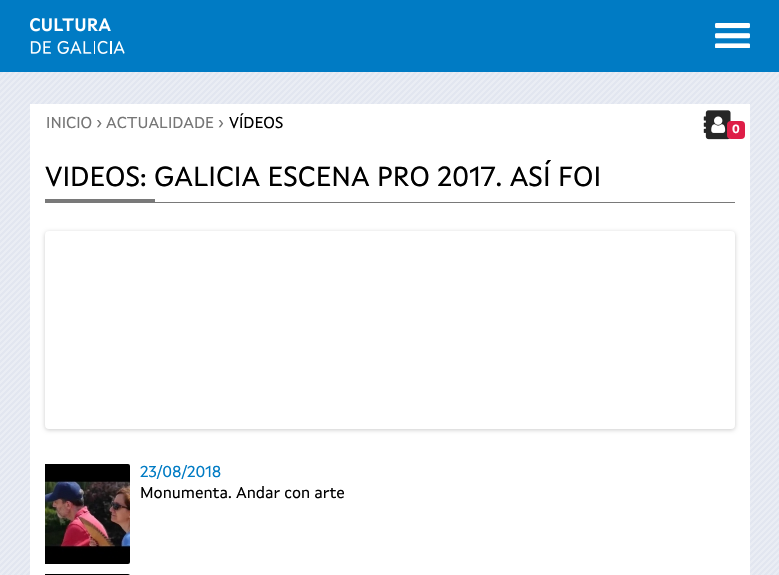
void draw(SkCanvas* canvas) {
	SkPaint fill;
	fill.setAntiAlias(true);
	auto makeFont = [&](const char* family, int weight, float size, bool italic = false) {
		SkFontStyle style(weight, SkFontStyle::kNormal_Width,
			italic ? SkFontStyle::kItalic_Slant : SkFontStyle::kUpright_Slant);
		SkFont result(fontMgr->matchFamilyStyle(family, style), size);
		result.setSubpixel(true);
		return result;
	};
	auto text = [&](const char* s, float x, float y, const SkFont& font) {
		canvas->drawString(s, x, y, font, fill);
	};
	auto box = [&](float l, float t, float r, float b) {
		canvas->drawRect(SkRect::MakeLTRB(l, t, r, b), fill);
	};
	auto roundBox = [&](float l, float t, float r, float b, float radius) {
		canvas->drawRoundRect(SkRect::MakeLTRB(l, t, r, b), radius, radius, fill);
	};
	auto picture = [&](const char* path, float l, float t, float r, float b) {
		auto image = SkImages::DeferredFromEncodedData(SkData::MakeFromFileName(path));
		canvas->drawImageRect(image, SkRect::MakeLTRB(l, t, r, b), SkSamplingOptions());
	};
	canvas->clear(0xFFFFFFFF);
	picture("image0.png", 0, 72, 779, 575);
	fill.setColor(0xFF007BC4);
	box(0, 0, 779, 72);
	picture("image1.png", 30, 18, 125, 54);
	picture("image2.png", 715, 23, 750, 48);
	fill.setColor(0xFFFFFFFF);
	box(30, 104, 750, 575);
	picture("image3.png", 703, 110, 731, 140);
	fill.setColor(0xFFDE1E47);
	roundBox(727, 121, 745, 139, 4);
	fill.setColor(0xFF797979);
	box(45, 202, 735, 203);
	box(45, 199, 155, 202);
	fill.setColor(0x33000000);
	fill.setMaskFilter(SkMaskFilter::MakeBlur(kNormal_SkBlurStyle, 2));
	canvas->drawRoundRect(SkRect::MakeLTRB(45, 232, 735, 430), 4, 4, fill);
	fill.setMaskFilter(nullptr);
	fill.setColor(0xFFFFFFFF);
	canvas->drawRoundRect(SkRect::MakeLTRB(47, 233, 733, 427), 2, 2, fill);
	fill.setStyle(SkPaint::kStroke_Style);
	fill.setStrokeWidth(4);
	canvas->drawRoundRect(SkRect::MakeLTRB(47, 233, 733, 427), 2, 2, fill);
	picture("image4.png", 45, 464, 130, 564);
	picture("image5.png", 45, 574, 130, 575);
	auto font1 = makeFont("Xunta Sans", 400, 16);
	fill.setStyle(SkPaint::kFill_Style);
	fill.setColor(0xFF767676);
	text("INICIO ›", 46, 128, font1);
	text("ACTUALIDADE ›", 106, 128, font1);
	fill.setColor(0xFF000000);
	text("VÍDEOS", 229, 128, font1);
	auto font2 = makeFont("Xunta Sans", 700, 12);
	fill.setColor(0xFFFFFFFF);
	text("0", 732, 133, font2);
	auto font3 = makeFont("Xunta Sans", 400, 28);
	fill.setColor(0xFF000000);
	text("VIDEOS: GALICIA ESCENA PRO 2017. ASÍ FOI", 45, 186, font3);
	fill.setColor(0xFF007BC4);
	text("23/08/2018", 140, 477, font1);
	fill.setColor(0xFF000000);
	text("Monumenta. Andar con arte", 140, 498, font1);
}
